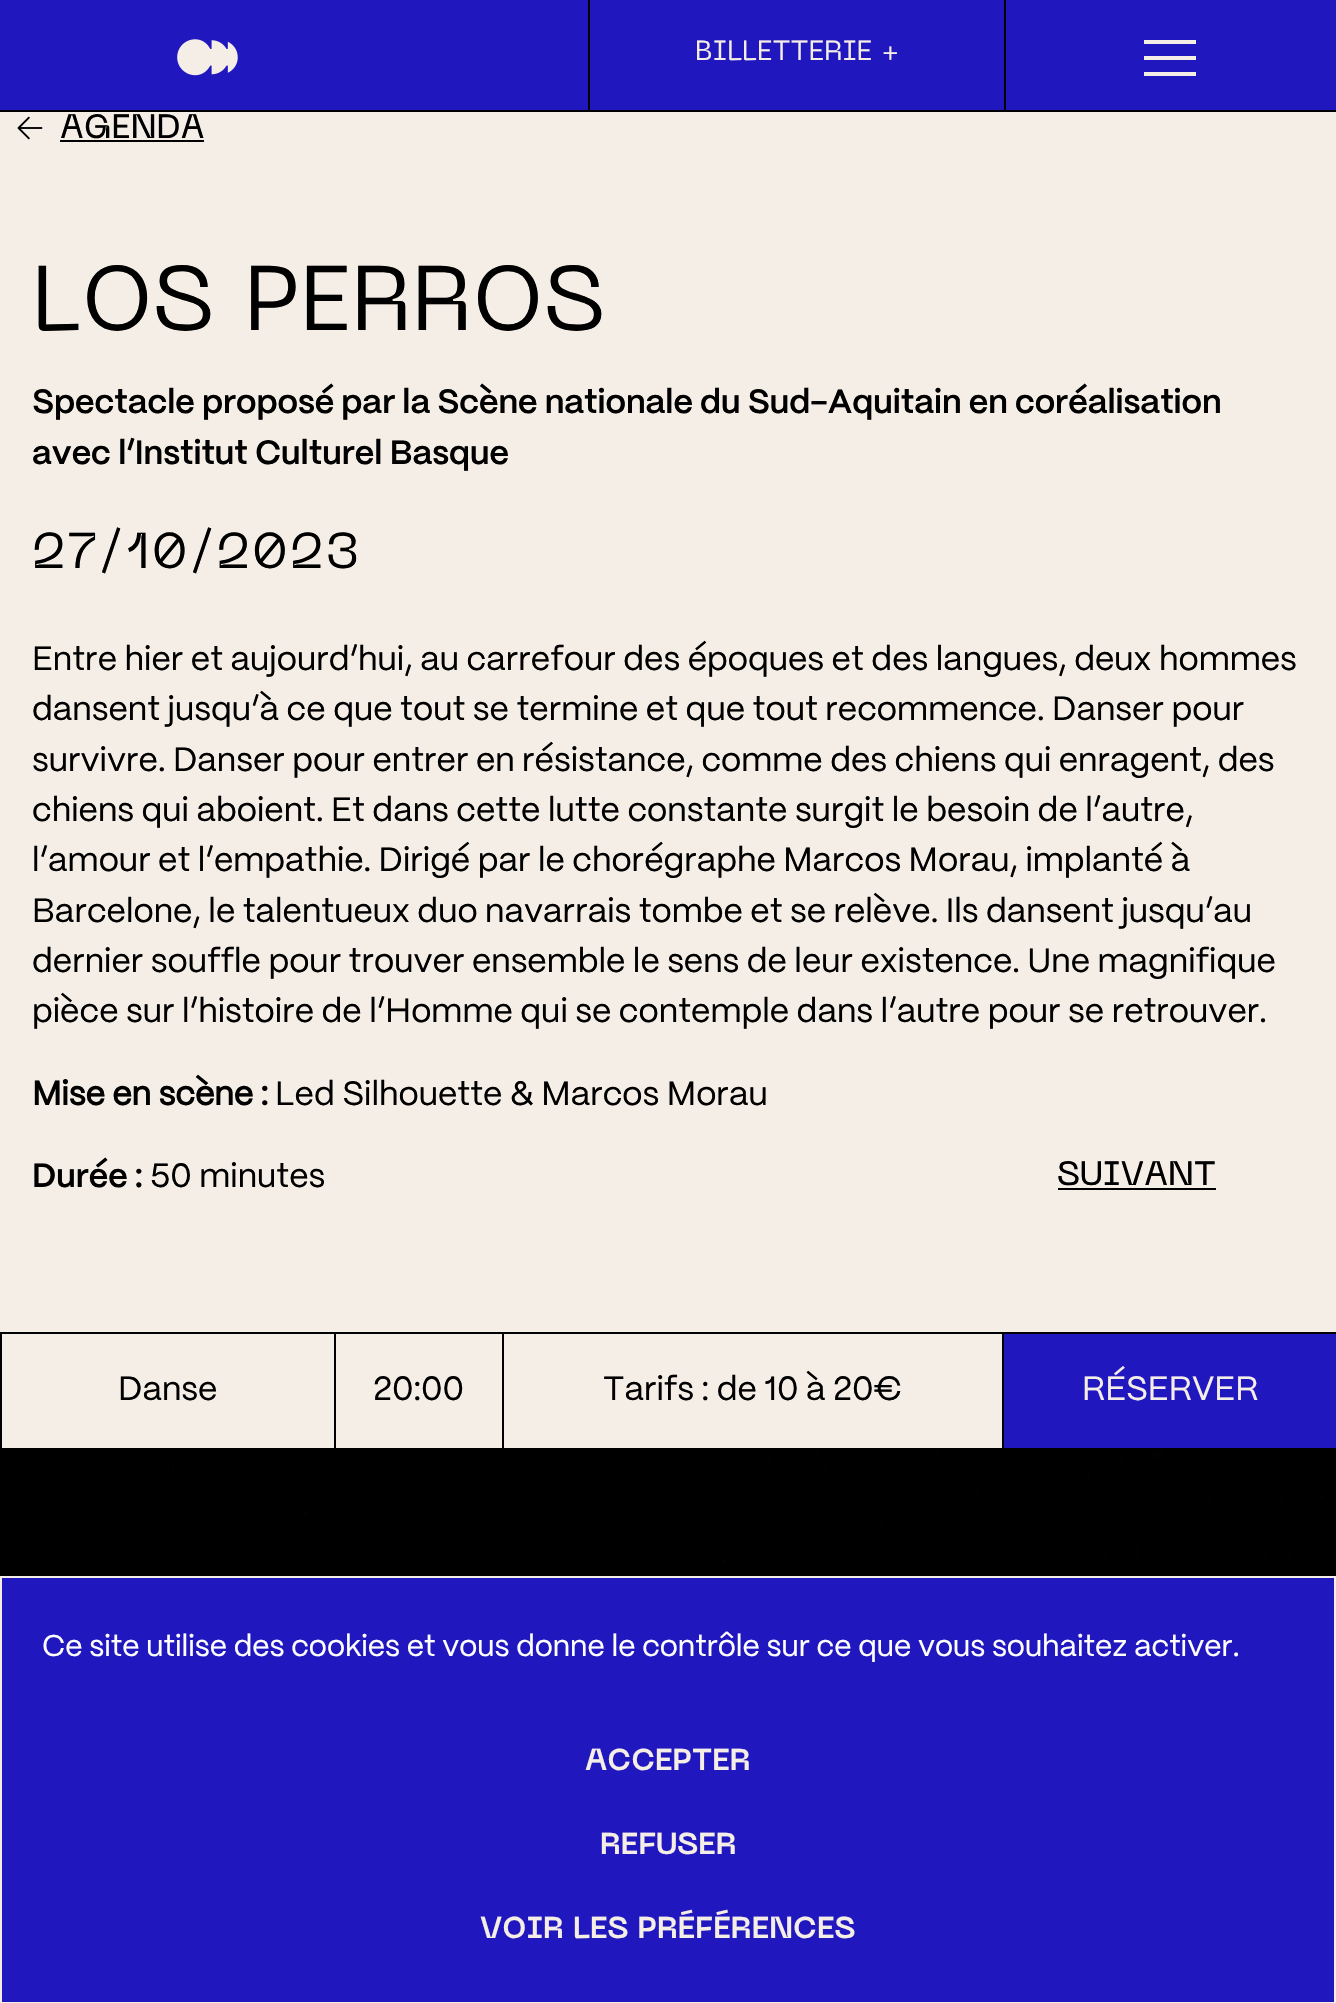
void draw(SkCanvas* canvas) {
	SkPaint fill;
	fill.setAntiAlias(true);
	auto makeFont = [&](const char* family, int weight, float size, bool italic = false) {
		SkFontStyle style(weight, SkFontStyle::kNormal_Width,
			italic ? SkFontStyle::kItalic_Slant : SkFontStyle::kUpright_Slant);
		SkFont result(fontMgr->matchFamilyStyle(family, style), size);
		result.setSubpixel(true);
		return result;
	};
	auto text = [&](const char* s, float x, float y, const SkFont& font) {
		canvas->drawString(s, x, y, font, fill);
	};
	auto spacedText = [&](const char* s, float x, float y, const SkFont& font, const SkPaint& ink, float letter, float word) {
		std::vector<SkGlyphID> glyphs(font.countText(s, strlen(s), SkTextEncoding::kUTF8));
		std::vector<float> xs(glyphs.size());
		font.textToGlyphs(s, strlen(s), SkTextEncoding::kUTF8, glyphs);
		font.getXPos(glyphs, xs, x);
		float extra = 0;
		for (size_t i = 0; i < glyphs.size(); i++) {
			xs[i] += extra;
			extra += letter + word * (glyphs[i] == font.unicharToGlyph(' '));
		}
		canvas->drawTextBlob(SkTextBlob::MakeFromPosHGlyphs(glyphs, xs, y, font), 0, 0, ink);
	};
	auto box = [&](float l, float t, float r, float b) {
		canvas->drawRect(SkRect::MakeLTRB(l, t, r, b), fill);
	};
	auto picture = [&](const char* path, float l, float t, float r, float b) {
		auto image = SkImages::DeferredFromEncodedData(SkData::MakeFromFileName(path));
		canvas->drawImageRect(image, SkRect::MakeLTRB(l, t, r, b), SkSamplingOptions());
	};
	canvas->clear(0xFFF5EEE6);
	fill.setColor(0xFF2117BF);
	box(0, 0, 1336, 110);
	fill.setColor(0xFF000000);
	box(0, 110, 1336, 112);
	picture("image0.png", 177, 39, 238, 76);
	box(588, 0, 590, 110);
	box(1004, 0, 1006, 110);
	fill.setColor(0xFFF5EEE6);
	box(1144, 40, 1196, 44);
	box(1144, 56, 1196, 60);
	box(1144, 72, 1196, 76);
	picture("image1.png", 17, 116, 43, 140);
	fill.setColor(0xFF000000);
	box(60, 140, 204, 142);
	box(1058, 1188, 1216, 1190);
	box(0, 1332, 1336, 1334);
	box(0, 1448, 1336, 1450);
	box(0, 1334, 2, 1448);
	box(334, 1334, 336, 1448);
	box(502, 1334, 504, 1448);
	fill.setColor(0xFF2117BF);
	box(1004, 1334, 1336, 1448);
	fill.setColor(0xFF000000);
	box(1002, 1334, 1004, 1448);
	box(0, 1450, 2, 1576);
	picture("image2.png", 2, 1450, 1336, 1576);
	fill.setColor(0xFF2117BF);
	box(2, 1578, 1334, 2002);
	auto font1 = makeFont("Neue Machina", 400, 27.5f);
	fill.setColor(0xFFF5EEE6);
	text("BILLETTERIE +", 695, 60, font1);
	auto font2 = makeFont("Neue Machina", 500, 33.6f);
	fill.setColor(0xFF000000);
	text("AGENDA", 60, 138, font2);
	auto font3 = makeFont("Neue Machina", 400, 91);
	text("LOS PERROS", 32, 330, font3);
	auto font4 = makeFont("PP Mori", 600, 33.6f);
	spacedText("Spectacle proposé par la Scène nationale du Sud-Aquitain en coréalisation", 32, 413, font4, fill, 0, -0.25f);
	text("avec l’Institut Culturel Basque", 32, 464, font4);
	auto font5 = makeFont("Neue Machina", 400, 50);
	spacedText("27/10/2023", 32, 568, font5, fill, 2, 0);
	auto font6 = makeFont("PP Mori", 400, 33.6f);
	text("Entre hier et aujourd’hui, au carrefour des époques et des langues, deux hommes", 32, 670, font6);
	text("dansent jusqu’à ce que tout se termine et que tout recommence. Danser pour", 32, 720, font6);
	spacedText("survivre. Danser pour entrer en résistance, comme des chiens qui enragent, des", 32, 771, font6, fill, 0, -0.1f);
	text("chiens qui aboient. Et dans cette lutte constante surgit le besoin de l’autre,", 32, 821, font6);
	spacedText("l’amour et l’empathie. Dirigé par le chorégraphe Marcos Morau, implanté à", 32, 871, font6, fill, 0, -0.1f);
	spacedText("Barcelone, le talentueux duo navarrais tombe et se relève. Ils dansent jusqu’au", 32, 922, font6, fill, 0, -0.1f);
	spacedText("dernier souffle pour trouver ensemble le sens de leur existence. Une magnifique", 32, 972, font6, fill, 0, -0.1f);
	text("pièce sur l’histoire de l’Homme qui se contemple dans l’autre pour se retrouver.", 32, 1022, font6);
	auto font7 = makeFont("PP Mori", 700, 33.6f);
	text("Mise en scène :", 32, 1105, font7);
	text("Led Silhouette & Marcos Morau", 275, 1105, font6);
	text("Durée :", 32, 1187, font4);
	text("50 minutes", 150, 1187, font6);
	text("SUIVANT", 1057, 1185, font2);
	text("Danse", 118, 1400, font6);
	text("20:00", 373, 1400, font6);
	text("Tarifs : de 10 à 20€", 603, 1400, font6);
	fill.setColor(0xFFF5EEE6);
	text("RÉSERVER", 1082, 1400, font6);
	auto font8 = makeFont("PP Mori", 400, 30);
	fill.setColor(0xFFFFFFFF);
	text("Ce site utilise des cookies et vous donne le contrôle sur ce que vous souhaitez activer.", 42, 1656, font8);
	auto font9 = makeFont("Neue Machina", 700, 30);
	fill.setColor(0xFFF5EEE6);
	text("ACCEPTER", 585, 1770, font9);
	text("REFUSER", 600, 1854, font9);
	text("VOIR LES PRÉFÉRENCES", 480, 1938, font9);
}
